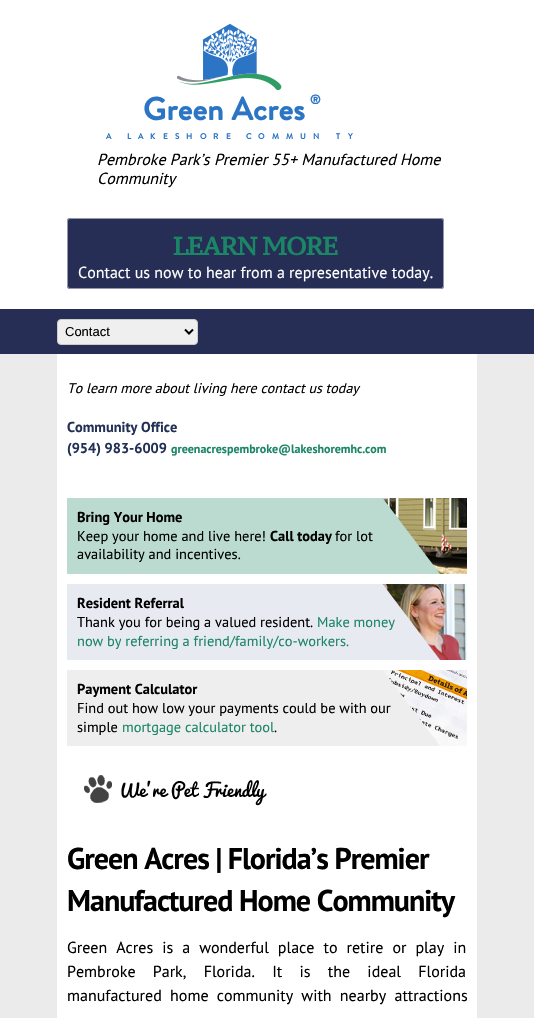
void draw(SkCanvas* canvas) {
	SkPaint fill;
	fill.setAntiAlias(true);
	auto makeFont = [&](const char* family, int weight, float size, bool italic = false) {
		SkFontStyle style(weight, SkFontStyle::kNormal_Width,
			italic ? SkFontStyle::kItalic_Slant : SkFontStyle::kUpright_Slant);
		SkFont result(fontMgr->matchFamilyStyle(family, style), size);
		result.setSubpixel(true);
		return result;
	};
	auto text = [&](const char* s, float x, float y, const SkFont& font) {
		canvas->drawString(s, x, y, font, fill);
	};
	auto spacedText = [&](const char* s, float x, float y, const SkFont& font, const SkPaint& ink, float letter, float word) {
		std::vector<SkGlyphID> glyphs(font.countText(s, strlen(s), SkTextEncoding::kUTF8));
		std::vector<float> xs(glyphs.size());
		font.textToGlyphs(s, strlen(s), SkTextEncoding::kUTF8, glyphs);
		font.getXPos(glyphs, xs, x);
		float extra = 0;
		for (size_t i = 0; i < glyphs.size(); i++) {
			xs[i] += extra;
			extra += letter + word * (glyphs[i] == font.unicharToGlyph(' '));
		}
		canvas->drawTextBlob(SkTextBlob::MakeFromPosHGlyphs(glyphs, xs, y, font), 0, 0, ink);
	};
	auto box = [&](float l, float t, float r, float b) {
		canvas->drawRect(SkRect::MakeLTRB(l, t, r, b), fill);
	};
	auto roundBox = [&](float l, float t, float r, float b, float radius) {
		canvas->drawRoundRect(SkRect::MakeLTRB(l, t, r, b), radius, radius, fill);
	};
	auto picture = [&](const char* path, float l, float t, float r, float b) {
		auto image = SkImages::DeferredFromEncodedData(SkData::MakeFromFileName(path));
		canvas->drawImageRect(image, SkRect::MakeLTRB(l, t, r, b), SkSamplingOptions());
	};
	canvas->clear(0xFFEBEBEB);
	fill.setColor(0xFFFFFFFF);
	box(0, 0, 534, 309);
	picture("image0.png", 176, 23, 282, 90);
	fill.setColor(0xFF262E55);
	roundBox(67, 218, 444, 289, 3);
	fill.setStyle(SkPaint::kStroke_Style);
	fill.setStrokeWidth(1);
	fill.setColor(0x80FFFFFF);
	canvas->drawRoundRect(SkRect::MakeLTRB(67.5f, 218.5f, 443.5f, 288.5f), 2.5f, 2.5f, fill);
	fill.setStyle(SkPaint::kFill_Style);
	fill.setColor(0xFF262E55);
	box(0, 309, 534, 354);
	fill.setColor(0xFFEFEFEF);
	canvas->drawRoundRect(SkRect::MakeLTRB(57.5f, 319.5f, 197.5f, 344.5f), 3.5f, 3.5f, fill);
	fill.setStyle(SkPaint::kStroke_Style);
	fill.setColor(0xFFCCCCCC);
	canvas->drawRoundRect(SkRect::MakeLTRB(57.5f, 319.5f, 197.5f, 344.5f), 3.5f, 3.5f, fill);
	fill.setStrokeWidth(2);
	fill.setColor(0xFF000000);
	canvas->drawPath(SkPathBuilder().moveTo(185, 329.5f).lineTo(189, 333.5f).lineTo(193, 329.5f).detach(), fill);
	fill.setStyle(SkPaint::kFill_Style);
	fill.setColor(0xFFFFFFFF);
	box(57, 354, 477, 1018);
	fill.setColor(0xFFBBDBD1);
	box(67, 498, 441, 574);
	picture("image1.png", 383, 498, 467, 574);
	fill.setColor(0xFFE8EAF1);
	box(67, 584, 441, 660);
	picture("image2.png", 382, 584, 467, 660);
	fill.setColor(0xFFEEEEEE);
	box(67, 670, 441, 746);
	picture("image3.png", 383, 670, 467, 746);
	picture("image4.png", 84, 775, 267, 806);
	auto font1 = makeFont("Brandon Grotesque", 700, 32);
	fill.setColor(0xFF2C75C4);
	spacedText("Green Acres", 143, 120, font1, fill, 0.4f, 0);
	auto font2 = makeFont("Brandon Grotesque", 700, 13);
	spacedText("®", 310, 104, font2, fill, 0.4f, 0);
	auto font3 = makeFont("Brandon Grotesque", 700, 8);
	spacedText("A", 106, 139, font3, fill, -2, 0);
	spacedText("L", 127, 139, font3, fill, -2, 0);
	spacedText("A", 138, 139, font3, fill, -2, 0);
	spacedText("K", 150, 139, font3, fill, -2, 0);
	spacedText("E", 163, 139, font3, fill, -2, 0);
	spacedText("S", 175, 139, font3, fill, -2, 0);
	spacedText("H", 186, 139, font3, fill, -2, 0);
	spacedText("O", 200, 139, font3, fill, -2, 0);
	spacedText("R", 213, 139, font3, fill, -2, 0);
	spacedText("E", 226, 139, font3, fill, -2, 0);
	spacedText("C", 246, 139, font3, fill, -2, 0);
	spacedText("O", 258, 139, font3, fill, -2, 0);
	spacedText("M", 272, 139, font3, fill, -2, 0);
	spacedText("M", 286, 139, font3, fill, -2, 0);
	spacedText("U", 300, 139, font3, fill, -2, 0);
	spacedText("N", 313, 139, font3, fill, -2, 0);
	spacedText("T", 336, 139, font3, fill, -2, 0);
	spacedText("Y", 348, 139, font3, fill, -2, 0);
	auto font4 = makeFont("PT Sans", 400, 16, true);
	fill.setColor(0xFF000000);
	text("Pembroke Park’s Premier 55+ Manufactured Home", 97, 165, font4);
	text("Community", 97, 184, font4);
	auto font5 = makeFont("PT Serif Caption", 700, 25);
	fill.setColor(0xFF1B8666);
	spacedText("LEARN MORE", 173, 255, font5, fill, -1, 0);
	auto font6 = makeFont("PT Sans", 400, 16);
	fill.setColor(0xFFFFFFFF);
	text("Contact us now to hear from a representative today.", 78, 278, font6);
	auto font7 = makeFont("Liberation Sans", 400, 13);
	fill.setColor(0xFF000000);
	text("Contact", 65, 336, font7);
	auto font8 = makeFont("PT Sans", 400, 14, true);
	text("To learn more about living here contact us today", 67, 393, font8);
	auto font9 = makeFont("PT Sans", 700, 14.4f);
	fill.setColor(0xFF223055);
	text("Community Office", 67, 432, font9);
	text("(954) 983-6009", 67, 453, font9);
	auto font10 = makeFont("PT Sans", 700, 12);
	fill.setColor(0xFF1B8666);
	text("greenacrespembroke@lakeshoremhc.com", 171, 453, font10);
	fill.setColor(0xFF000000);
	text("Bring Your Home", 77, 522, font9);
	auto font11 = makeFont("PT Sans", 400, 14.4f);
	text("Keep your home and live here!", 77, 541, font11);
	text("Call today", 270, 541, font9);
	text("for lot", 335, 541, font11);
	text("availability and incentives.", 77, 559, font11);
	text("Resident Referral", 77, 608, font9);
	text("Thank you for being a valued resident.", 77, 627, font11);
	fill.setColor(0xFF1B8666);
	text("Make money", 317, 627, font11);
	text("now by referring a friend/family/co-workers.", 77, 646, font11);
	fill.setColor(0xFF000000);
	text("Payment Calculator", 77, 694, font9);
	text("Find out how low your payments could be with our", 77, 713, font11);
	text("simple", 77, 732, font11);
	fill.setColor(0xFF1B8666);
	text("mortgage calculator tool", 122, 732, font11);
	fill.setColor(0xFF000000);
	text(".", 274, 732, font11);
	auto font12 = makeFont("PT Sans", 700, 30);
	spacedText("Green Acres | Florida’s Premier", 67, 869, font12, fill, -1, 0);
	spacedText("Manufactured Home Community", 67, 911, font12, fill, -1, 0);
	spacedText("Green Acres is a wonderful place to retire or play in", 67, 953, font6, fill, 0, 4.75f);
	spacedText("Pembroke Park, Florida. It is the ideal Florida", 67, 977, font6, fill, 0, 13);
	spacedText("manufactured home community with nearby attractions", 67, 1001, font6, fill, 0, 4);
}
